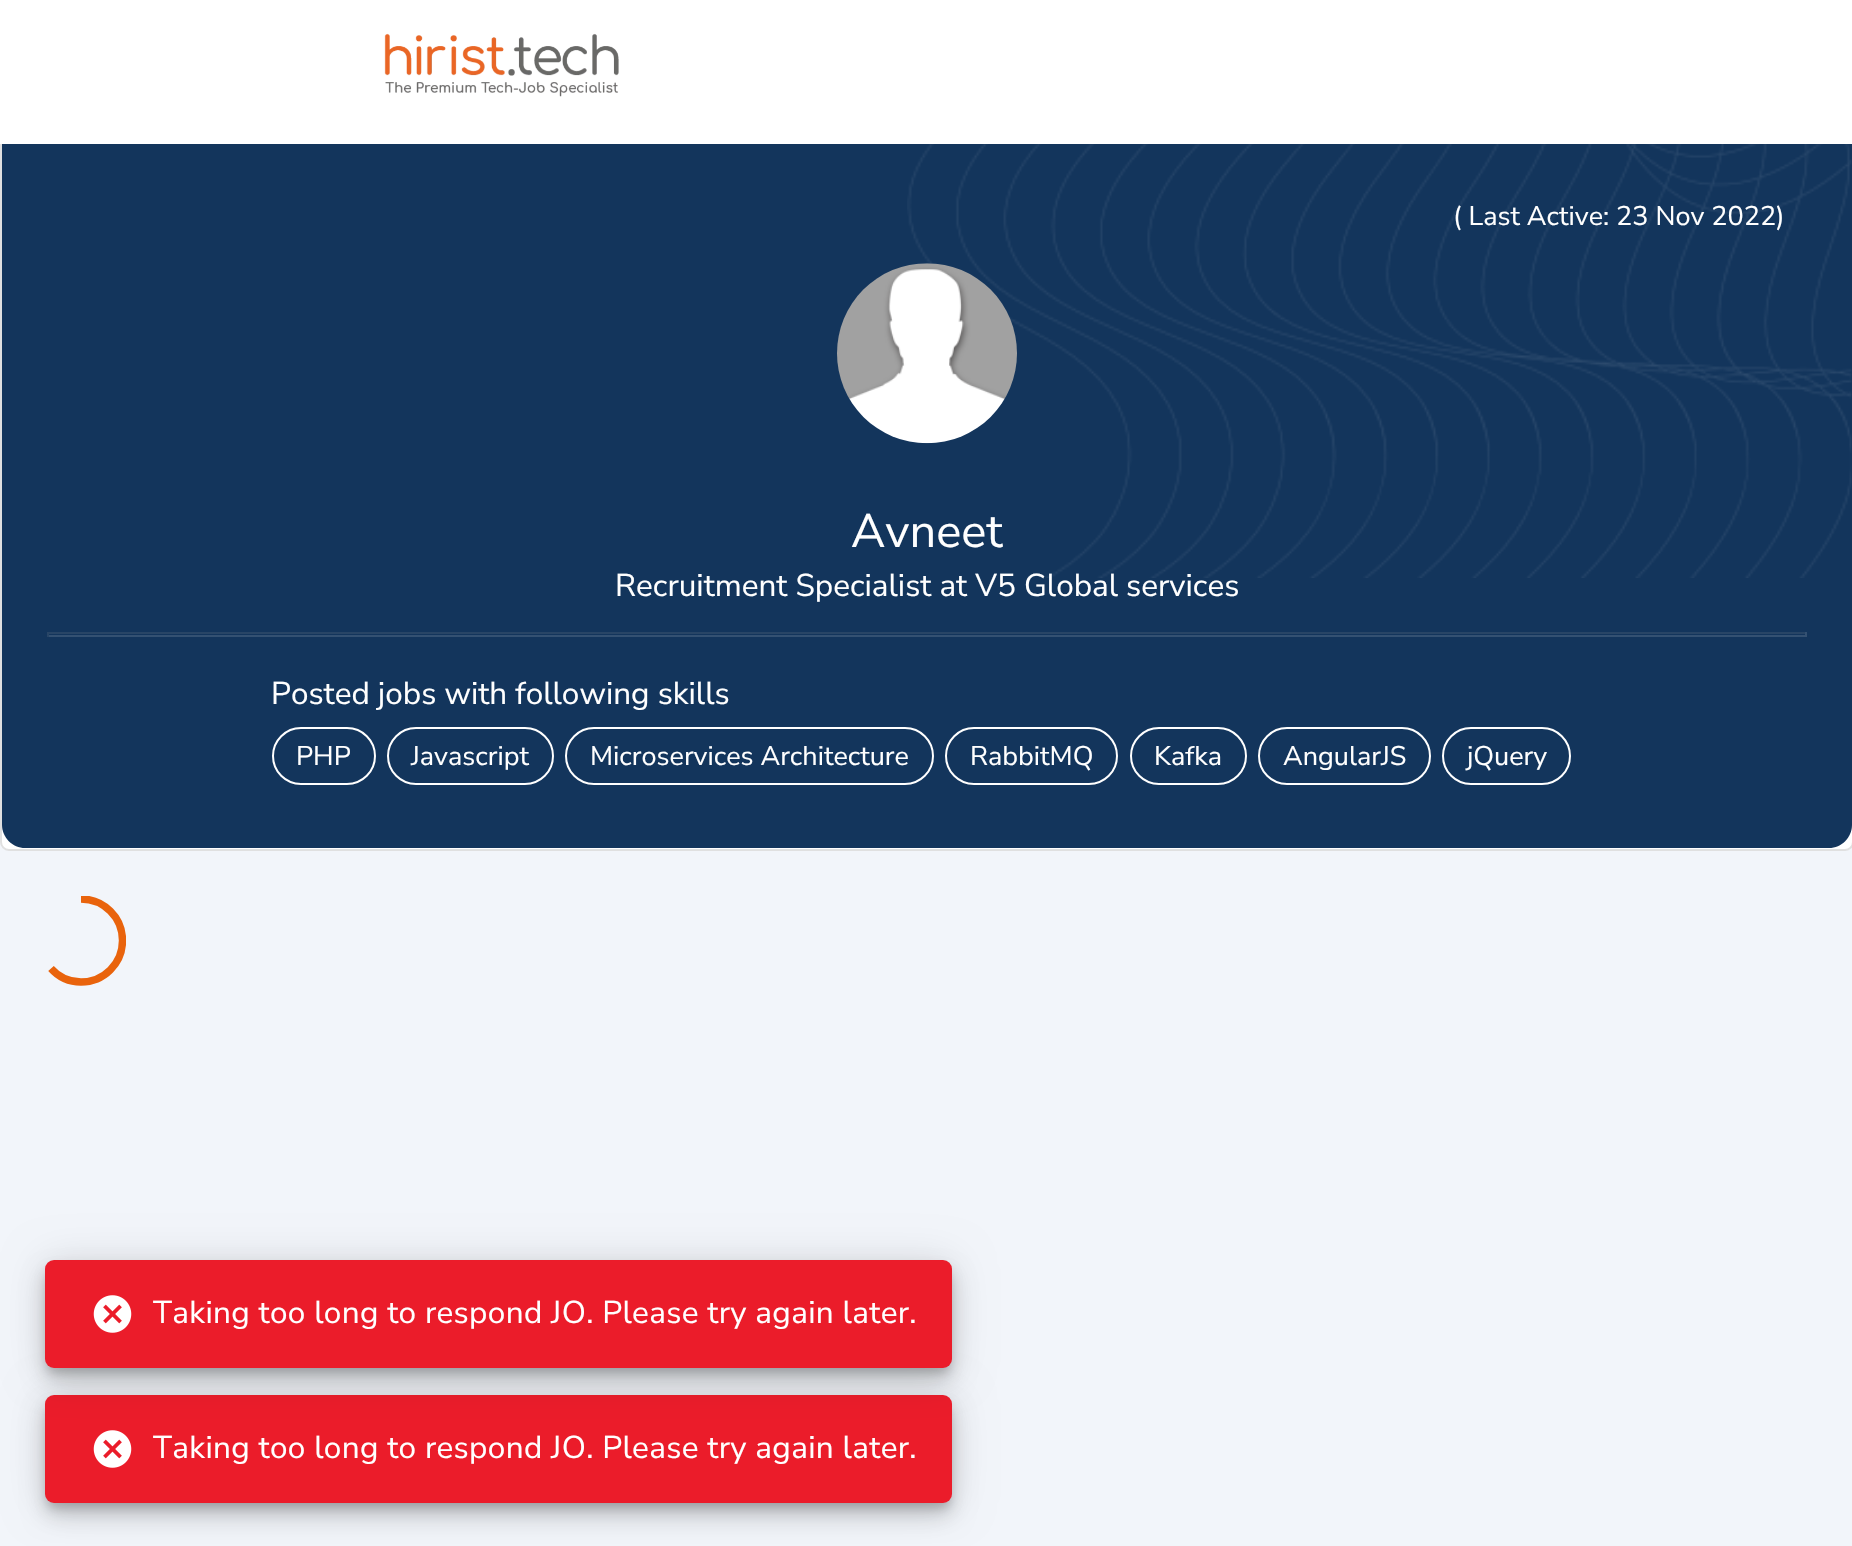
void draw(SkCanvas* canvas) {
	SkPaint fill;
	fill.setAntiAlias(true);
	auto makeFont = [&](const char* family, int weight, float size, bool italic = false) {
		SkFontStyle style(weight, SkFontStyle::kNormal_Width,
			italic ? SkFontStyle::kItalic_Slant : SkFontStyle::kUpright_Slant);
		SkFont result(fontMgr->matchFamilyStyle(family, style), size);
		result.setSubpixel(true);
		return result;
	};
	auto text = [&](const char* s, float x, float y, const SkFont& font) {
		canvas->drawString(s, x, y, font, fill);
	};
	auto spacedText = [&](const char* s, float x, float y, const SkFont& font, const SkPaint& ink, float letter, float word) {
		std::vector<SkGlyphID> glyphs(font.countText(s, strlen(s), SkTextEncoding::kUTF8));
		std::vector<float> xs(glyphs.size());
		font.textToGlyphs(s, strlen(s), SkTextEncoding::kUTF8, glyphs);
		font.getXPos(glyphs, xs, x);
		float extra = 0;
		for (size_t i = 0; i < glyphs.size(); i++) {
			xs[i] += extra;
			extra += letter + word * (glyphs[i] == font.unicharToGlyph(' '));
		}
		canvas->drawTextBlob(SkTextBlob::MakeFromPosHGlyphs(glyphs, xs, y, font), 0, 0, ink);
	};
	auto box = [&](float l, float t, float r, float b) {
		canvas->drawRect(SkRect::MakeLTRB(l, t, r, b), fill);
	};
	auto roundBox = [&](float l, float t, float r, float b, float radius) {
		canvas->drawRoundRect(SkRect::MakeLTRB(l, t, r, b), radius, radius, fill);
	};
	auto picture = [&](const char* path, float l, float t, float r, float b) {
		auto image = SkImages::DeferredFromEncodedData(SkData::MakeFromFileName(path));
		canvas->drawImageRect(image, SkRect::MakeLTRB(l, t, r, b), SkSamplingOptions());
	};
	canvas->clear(0xFFF2F5FA);
	fill.setColor(0xFFFFFFFF);
	roundBox(0, 126, 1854, 851, 9);
	fill.setStyle(SkPaint::kStroke_Style);
	fill.setStrokeWidth(2);
	fill.setColor(0x1F000000);
	canvas->drawRoundRect(SkRect::MakeLTRB(1, 127, 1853, 850), 8, 8, fill);
	fill.setStyle(SkPaint::kFill_Style);
	fill.setColor(0xFF13355C);
	canvas->drawPath(SkPathBuilder().moveTo(9, 128).lineTo(1845, 128).cubicTo(1849, 128, 1852, 131, 1852, 135).lineTo(1852, 825).cubicTo(1852, 837.5f, 1841.5f, 848, 1829, 848).lineTo(25, 848).cubicTo(12.5f, 848, 2, 837.5f, 2, 825).lineTo(2, 135).cubicTo(2, 131, 5, 128, 9, 128).close().detach(), fill);
	fill.setColor(0xFFFFFFFF);
	box(0, 0, 1852, 144);
	picture("image0.png", 384, 33, 619, 97);
	picture("image1.png", 907, 144, 1852, 578);
	fill.setColor(0xFF284566);
	box(47, 632, 1807, 634);
	fill.setColor(0xFF345172);
	box(1805, 632, 1807, 637);
	box(47, 635, 1807, 637);
	fill.setColor(0xFF284566);
	box(47, 632, 49, 637);
	fill.setStyle(SkPaint::kStroke_Style);
	fill.setColor(0xFFFFFFFF);
	canvas->drawRoundRect(SkRect::MakeLTRB(273, 728, 375, 784), 28, 28, fill);
	canvas->drawRoundRect(SkRect::MakeLTRB(388, 728, 553, 784), 28, 28, fill);
	canvas->drawRoundRect(SkRect::MakeLTRB(566, 728, 933, 784), 28, 28, fill);
	canvas->drawRoundRect(SkRect::MakeLTRB(946, 728, 1117, 784), 28, 28, fill);
	canvas->drawRoundRect(SkRect::MakeLTRB(1131, 728, 1246, 784), 28, 28, fill);
	canvas->drawRoundRect(SkRect::MakeLTRB(1259, 728, 1430, 784), 28, 28, fill);
	canvas->drawRoundRect(SkRect::MakeLTRB(1443, 728, 1570, 784), 28, 28, fill);
	picture("image2.png", 837, 263, 1017, 444);
	canvas->save();
	canvas->clipRect(SkRect::MakeLTRB(36, 896, 126, 986));
	fill.setStrokeWidth(7.4f);
	fill.setColor(0xFFE9630C);
	canvas->drawPath(SkPathBuilder().moveTo(81, 899).cubicTo(104, 899, 122.5f, 917.5f, 122.5f, 940.5f).cubicTo(122.5f, 963.5f, 104, 982, 81, 982).cubicTo(69, 982, 58.5f, 977, 51, 968.5f).detach(), fill);
	canvas->restore();
	fill.setStyle(SkPaint::kFill_Style);
	fill.setColor(0x1F000000);
	fill.setMaskFilter(SkMaskFilter::MakeBlur(kNormal_SkBlurStyle, 20));
	canvas->drawRoundRect(SkRect::MakeLTRB(45, 1397, 952, 1505), 9, 9, fill);
	fill.setMaskFilter(nullptr);
	fill.setColor(0x24000000);
	fill.setMaskFilter(SkMaskFilter::MakeBlur(kNormal_SkBlurStyle, 11));
	canvas->drawRoundRect(SkRect::MakeLTRB(45, 1409, 952, 1517), 9, 9, fill);
	fill.setMaskFilter(nullptr);
	fill.setColor(0x33000000);
	fill.setMaskFilter(SkMaskFilter::MakeBlur(kNormal_SkBlurStyle, 5.5f));
	canvas->drawRoundRect(SkRect::MakeLTRB(47, 1404, 950, 1508), 7, 7, fill);
	fill.setMaskFilter(nullptr);
	fill.setColor(0xFFEB1C2A);
	roundBox(45, 1395, 952, 1503, 9);
	picture("image3.png", 93, 1430, 132, 1468);
	fill.setColor(0x1F000000);
	fill.setMaskFilter(SkMaskFilter::MakeBlur(kNormal_SkBlurStyle, 20));
	canvas->drawRoundRect(SkRect::MakeLTRB(45, 1262, 952, 1370), 9, 9, fill);
	fill.setMaskFilter(nullptr);
	fill.setColor(0x24000000);
	fill.setMaskFilter(SkMaskFilter::MakeBlur(kNormal_SkBlurStyle, 11));
	canvas->drawRoundRect(SkRect::MakeLTRB(45, 1274, 952, 1382), 9, 9, fill);
	fill.setMaskFilter(nullptr);
	fill.setColor(0x33000000);
	fill.setMaskFilter(SkMaskFilter::MakeBlur(kNormal_SkBlurStyle, 5.5f));
	canvas->drawRoundRect(SkRect::MakeLTRB(47, 1269, 950, 1373), 7, 7, fill);
	fill.setMaskFilter(nullptr);
	fill.setColor(0xFFEB1C2A);
	roundBox(45, 1260, 952, 1368, 9);
	picture("image3.png", 93, 1295, 132, 1333);
	auto font1 = makeFont("Nunito Sans", 400, 27);
	fill.setColor(0xFFFFFFFF);
	text("( Last Active: 23 Nov 2022)", 1453, 225, font1);
	auto font2 = makeFont("Nunito Sans", 400, 47);
	text("Avneet", 851, 547, font2);
	auto font3 = makeFont("Nunito Sans", 400, 31.5f);
	text("Recruitment Specialist at V5 Global services", 615, 596, font3);
	text("Posted jobs with following skills", 271, 704, font3);
	text("PHP", 296, 765, font1);
	text("Javascript", 411, 765, font1);
	text("Microservices Architecture", 590, 765, font1);
	text("RabbitMQ", 970, 765, font1);
	text("Kafka", 1154, 765, font1);
	text("AngularJS", 1283, 765, font1);
	text("jQuery", 1467, 765, font1);
	spacedText("Taking too long to respond JO. Please try again later.", 153, 1323, font3, fill, 0.35f, 0);
	spacedText("Taking too long to respond JO. Please try again later.", 153, 1458, font3, fill, 0.35f, 0);
}
